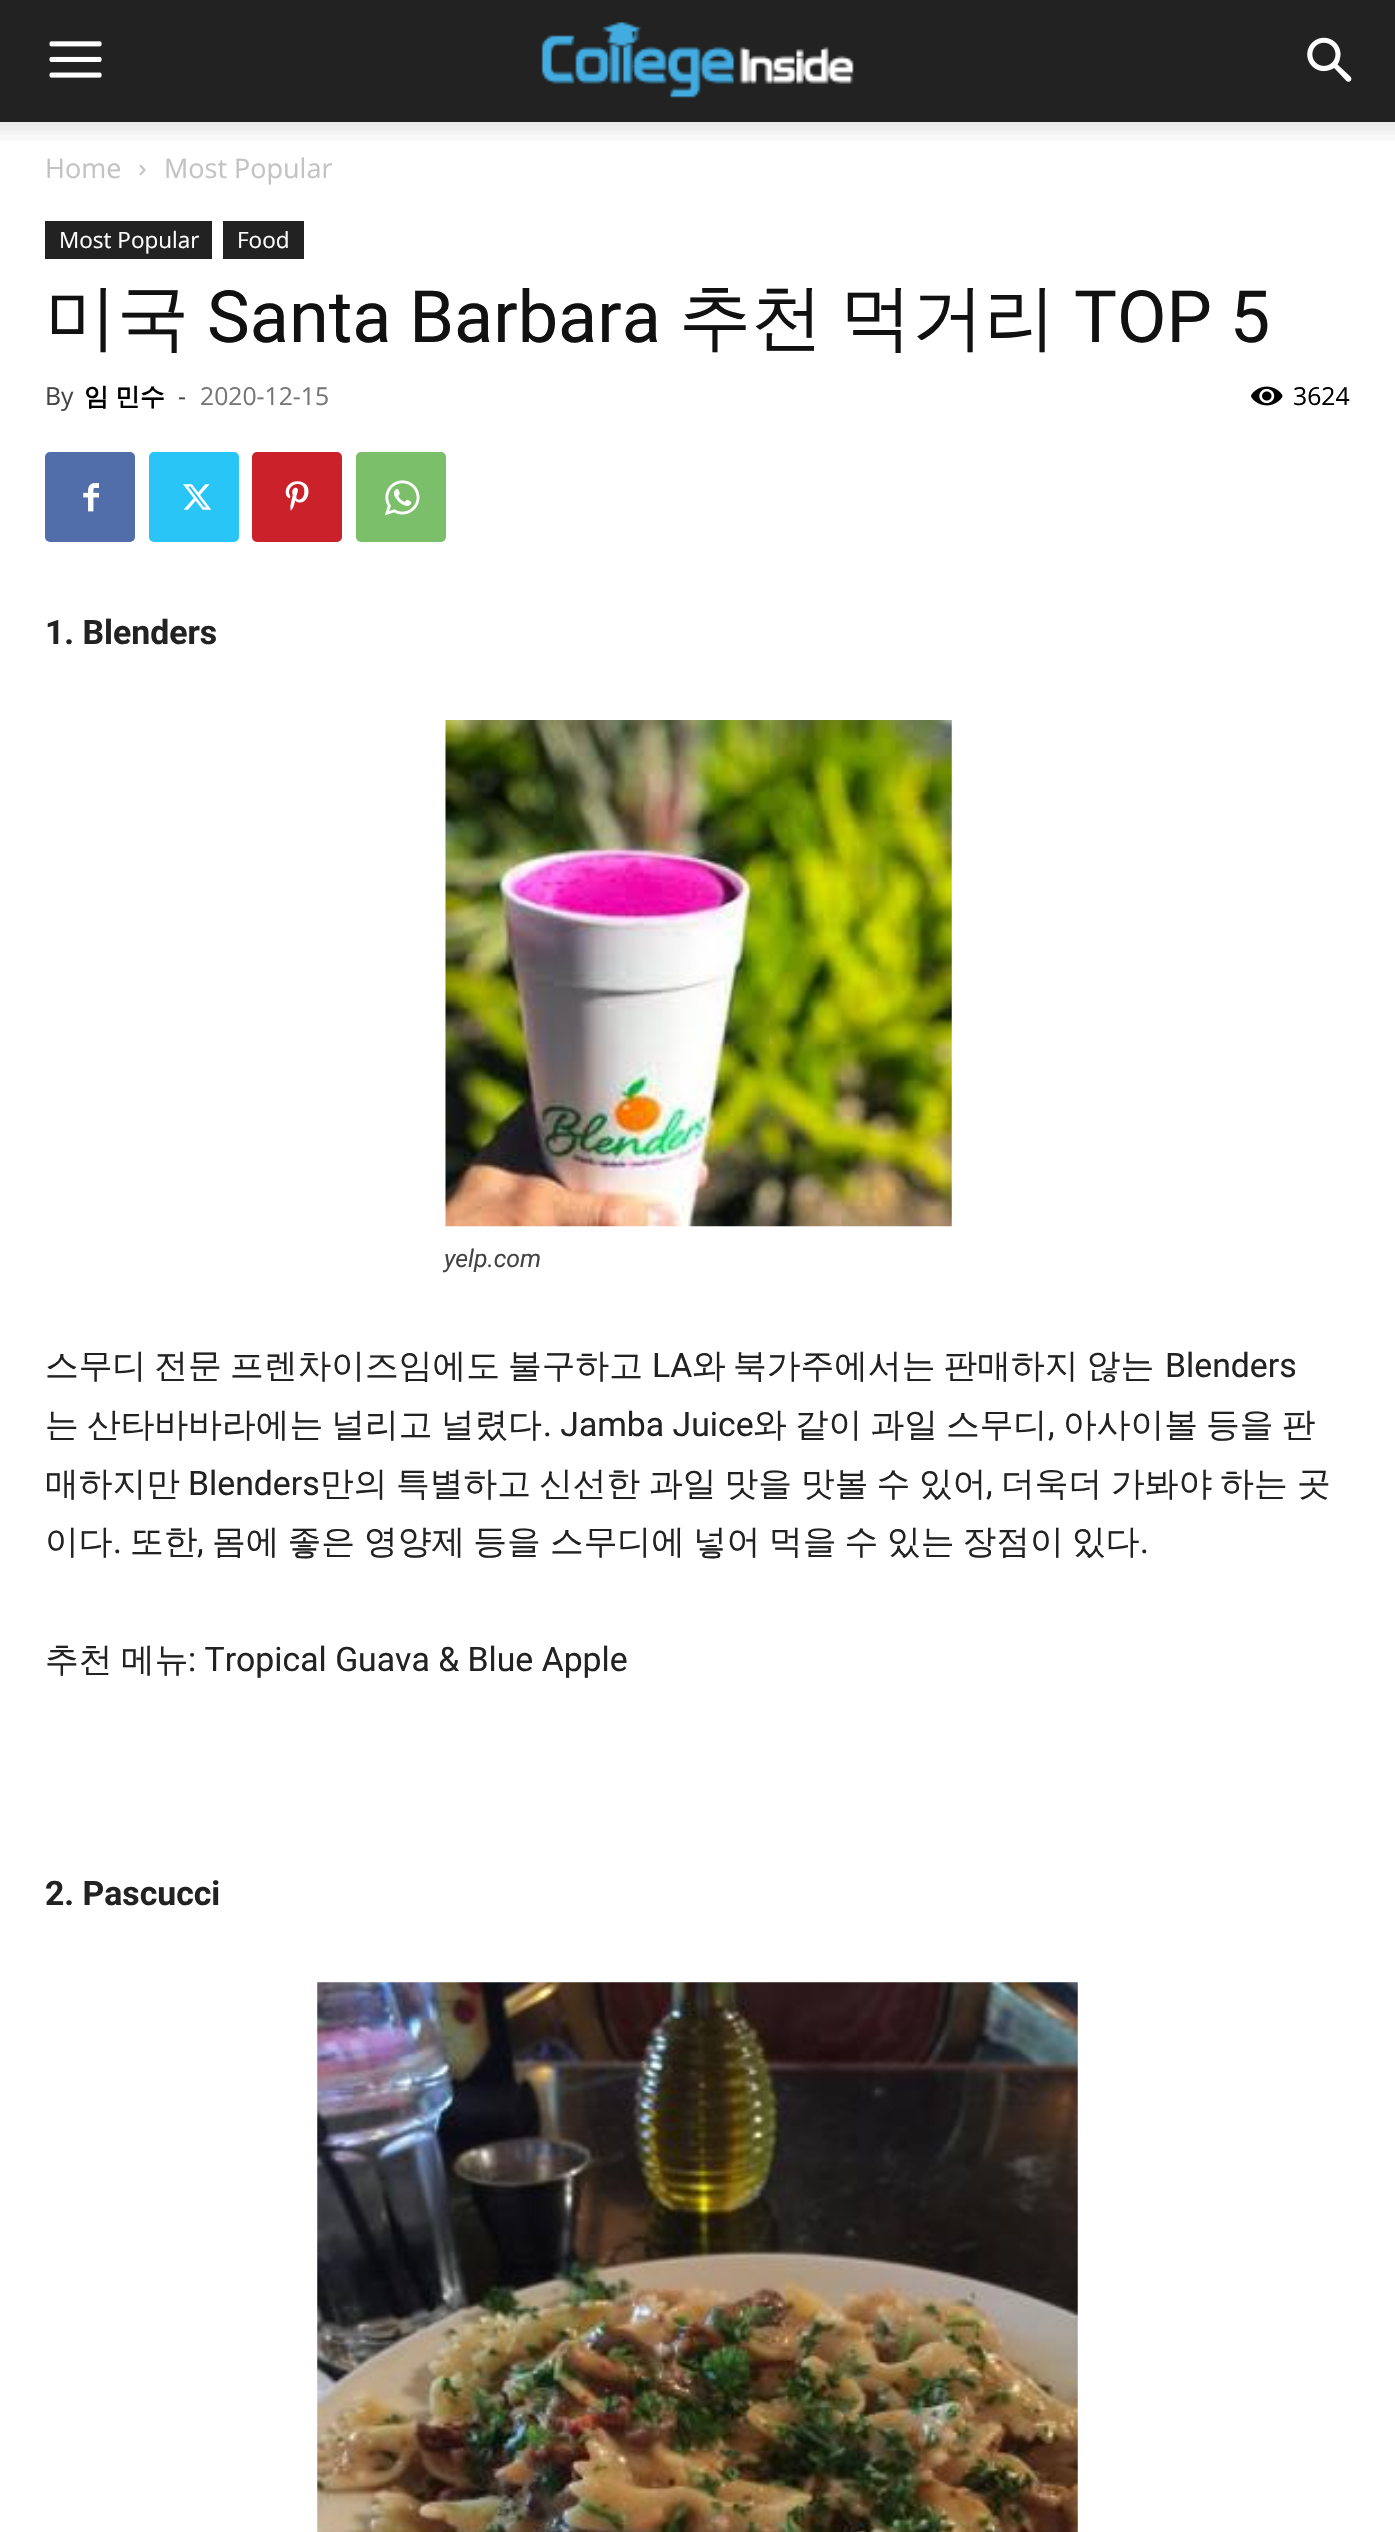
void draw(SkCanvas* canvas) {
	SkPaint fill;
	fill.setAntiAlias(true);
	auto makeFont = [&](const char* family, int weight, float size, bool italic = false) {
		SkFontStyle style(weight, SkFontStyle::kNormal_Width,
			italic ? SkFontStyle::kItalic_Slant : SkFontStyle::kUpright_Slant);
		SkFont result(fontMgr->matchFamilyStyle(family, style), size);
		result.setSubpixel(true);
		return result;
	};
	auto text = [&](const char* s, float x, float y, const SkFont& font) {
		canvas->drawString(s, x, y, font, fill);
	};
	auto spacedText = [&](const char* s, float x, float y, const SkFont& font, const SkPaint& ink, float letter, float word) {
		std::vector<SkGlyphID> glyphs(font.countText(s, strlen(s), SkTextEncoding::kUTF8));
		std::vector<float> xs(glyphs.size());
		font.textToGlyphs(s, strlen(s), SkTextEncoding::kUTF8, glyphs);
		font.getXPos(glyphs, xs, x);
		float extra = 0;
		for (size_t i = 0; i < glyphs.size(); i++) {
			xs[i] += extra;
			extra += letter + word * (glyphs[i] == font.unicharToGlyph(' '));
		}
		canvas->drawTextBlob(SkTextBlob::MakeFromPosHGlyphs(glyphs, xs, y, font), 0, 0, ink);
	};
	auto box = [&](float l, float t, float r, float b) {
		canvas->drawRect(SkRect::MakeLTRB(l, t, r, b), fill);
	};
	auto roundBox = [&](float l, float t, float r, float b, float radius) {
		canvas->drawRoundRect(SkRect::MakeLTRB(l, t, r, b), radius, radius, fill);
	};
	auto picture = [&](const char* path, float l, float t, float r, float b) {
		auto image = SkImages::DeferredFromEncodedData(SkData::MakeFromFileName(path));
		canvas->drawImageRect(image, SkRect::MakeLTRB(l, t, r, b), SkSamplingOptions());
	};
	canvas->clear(0xFFFFFFFF);
	fill.setColor(0xFF222222);
	box(0, 0, 1395, 122);
	picture("image0.png", 49, 41, 102, 78);
	picture("image1.png", 541, 22, 854, 98);
	picture("image2.png", 1307, 37, 1352, 82);
	picture("image3.png", 0, 122, 1395, 141);
	picture("image4.png", 139, 164, 146, 176);
	box(45, 221, 212, 259);
	box(223, 221, 304, 259);
	picture("image5.png", 1251, 386, 1283, 406);
	fill.setColor(0xFF516EAB);
	roundBox(45, 452, 135, 542, 5);
	picture("image6.png", 83, 483, 99, 512);
	fill.setColor(0xFF29C5F6);
	roundBox(149, 452, 239, 542, 5);
	picture("image7.png", 183, 484, 212, 510);
	fill.setColor(0xFFCA212A);
	roundBox(252, 452, 342, 542, 5);
	picture("image8.png", 285, 481, 309, 511);
	fill.setColor(0xFF7BBF6A);
	roundBox(356, 452, 446, 542, 5);
	picture("image9.png", 384, 480, 420, 516);
	picture("image10.png", 445, 720, 952, 1227);
	picture("image11.png", 317, 1982, 1078, 2532);
	auto font1 = makeFont("Open Sans", 400, 27);
	fill.setColor(0xFFC3C3C3);
	text("Home", 45, 178, font1);
	text("Most Popular", 164, 178, font1);
	auto font2 = makeFont("Open Sans", 400, 22.5f);
	fill.setColor(0xFFFFFFFF);
	text("Most Popular", 59, 248, font2);
	text("Food", 237, 248, font2);
	auto font3 = makeFont("WenQuanYi Zen Hei", 500, 72);
	fill.setColor(0xFF111111);
	text("미국", 45, 342, font3);
	auto font4 = makeFont("Roboto", 400, 72);
	text("Santa Barbara", 207, 342, font4);
	text("추천", 679, 342, font3);
	text("먹거리", 840, 342, font3);
	text("TOP 5", 1074, 342, font4);
	auto font5 = makeFont("Open Sans", 400, 24.75f);
	fill.setColor(0xFF444444);
	text("By", 45, 405, font5);
	auto font6 = makeFont("WenQuanYi Zen Hei", 700, 24.75f);
	fill.setColor(0xFF000000);
	spacedText("임 민수", 84, 405, font6, fill, 0, -1);
	fill.setColor(0xFF444444);
	text("-", 178, 405, font5);
	fill.setColor(0xFF767676);
	text("2020-12-15", 200, 405, font5);
	fill.setColor(0xFF000000);
	text("3624", 1293, 405, font5);
	auto font7 = makeFont("Roboto", 700, 33.75f);
	fill.setColor(0xFF222222);
	text("1. Blenders", 45, 644, font7);
	auto font8 = makeFont("Roboto", 400, 24.75f, true);
	fill.setColor(0xFF444444);
	text("yelp.com", 444, 1267, font8);
	auto font9 = makeFont("WenQuanYi Zen Hei", 500, 33.75f);
	fill.setColor(0xFF222222);
	spacedText("스무디 전문 프렌차이즈임에도 불구하고", 45, 1377, font9, fill, 0, -2);
	auto font10 = makeFont("Roboto", 400, 33.75f);
	text("LA", 652, 1377, font10);
	text("와", 692, 1377, font9);
	spacedText("북가주에서는 판매하지 않는", 733, 1377, font9, fill, 0, -2);
	text("Blenders", 1165, 1377, font10);
	text("는", 45, 1436, font9);
	spacedText("산타바바라에는 널리고 널렸다", 87, 1436, font9, fill, 0, -2);
	text(". Jamba Juice", 543, 1436, font10);
	spacedText("와 같이 과일 스무디", 753, 1436, font9, fill, 0, -2);
	text(",", 1048, 1436, font10);
	spacedText("아사이볼 등을 판", 1063, 1436, font9, fill, 0, -2);
	text("매하지만", 45, 1495, font9);
	text("Blenders", 188, 1495, font10);
	text("만의", 320, 1495, font9);
	spacedText("특별하고 신선한", 396, 1495, font9, fill, 0, -2);
	spacedText("과일 맛을", 649, 1495, font9, fill, 0, -2);
	spacedText("맛볼 수", 801, 1495, font9, fill, 0, -2);
	text("있어", 919, 1495, font9);
	text(",", 986, 1495, font10);
	text("더욱더", 1001, 1495, font9);
	spacedText("가봐야 하는", 1111, 1495, font9, fill, 0, -2);
	text("곳", 1297, 1495, font9);
	text("이다", 45, 1553, font9);
	text(".", 113, 1553, font10);
	text("또한", 130, 1553, font9);
	text(",", 197, 1553, font10);
	spacedText("몸에 좋은", 212, 1553, font9, fill, 0, -2);
	spacedText("영양제 등을", 364, 1553, font9, fill, 0, -2);
	spacedText("스무디에 넣어", 550, 1553, font9, fill, 0, -2);
	spacedText("먹을 수", 769, 1553, font9, fill, 0, -2);
	spacedText("있는 장점이 있다", 887, 1553, font9, fill, 0, -2);
	text(".", 1140, 1553, font10);
	text("추천", 45, 1671, font9);
	text("메뉴", 121, 1671, font9);
	text(": Tropical Guava & Blue Apple", 188, 1671, font10);
	text("2. Pascucci", 45, 1905, font7);
}
